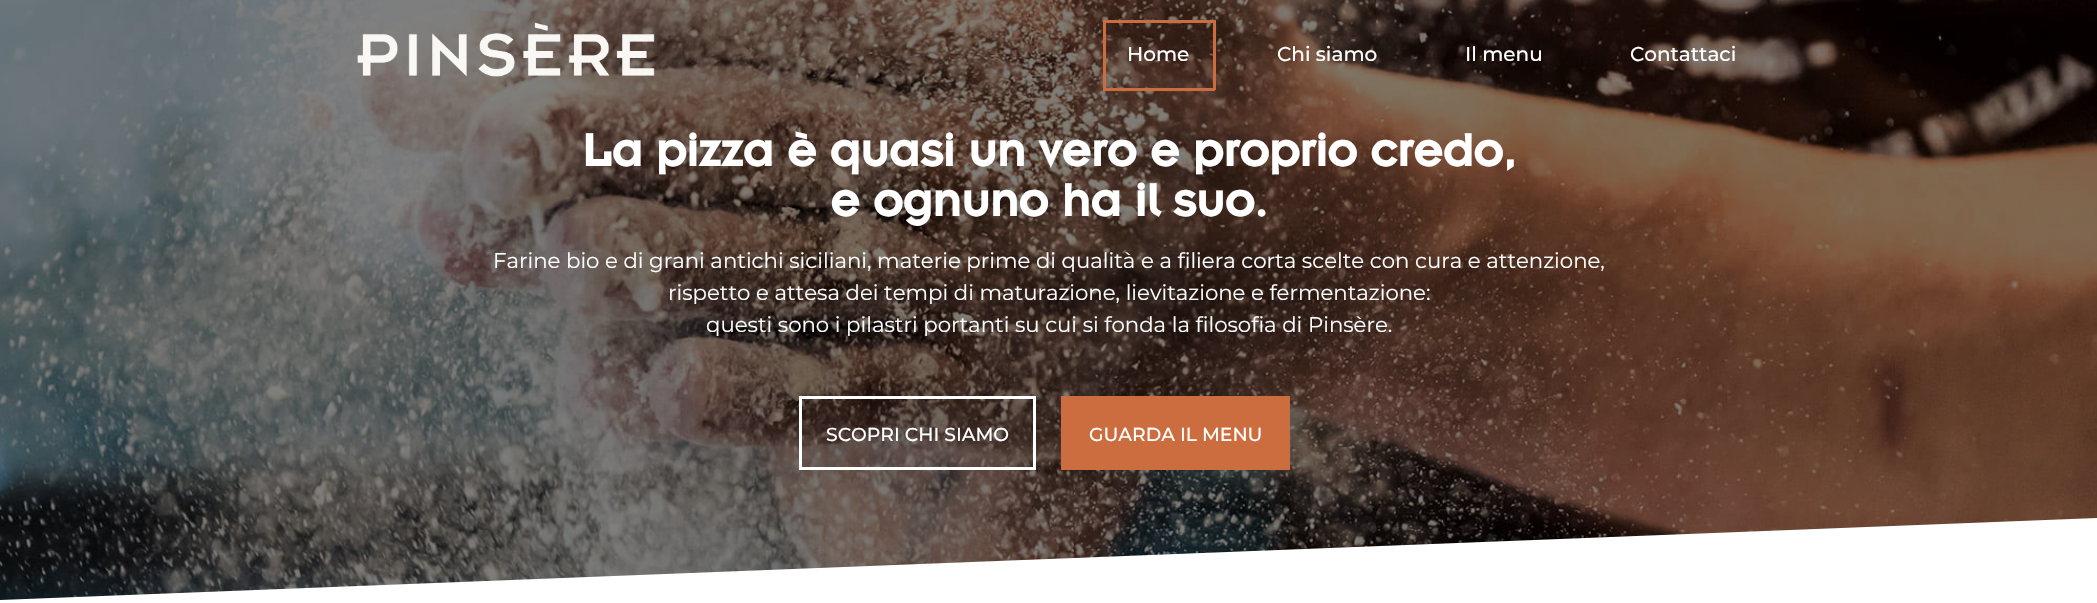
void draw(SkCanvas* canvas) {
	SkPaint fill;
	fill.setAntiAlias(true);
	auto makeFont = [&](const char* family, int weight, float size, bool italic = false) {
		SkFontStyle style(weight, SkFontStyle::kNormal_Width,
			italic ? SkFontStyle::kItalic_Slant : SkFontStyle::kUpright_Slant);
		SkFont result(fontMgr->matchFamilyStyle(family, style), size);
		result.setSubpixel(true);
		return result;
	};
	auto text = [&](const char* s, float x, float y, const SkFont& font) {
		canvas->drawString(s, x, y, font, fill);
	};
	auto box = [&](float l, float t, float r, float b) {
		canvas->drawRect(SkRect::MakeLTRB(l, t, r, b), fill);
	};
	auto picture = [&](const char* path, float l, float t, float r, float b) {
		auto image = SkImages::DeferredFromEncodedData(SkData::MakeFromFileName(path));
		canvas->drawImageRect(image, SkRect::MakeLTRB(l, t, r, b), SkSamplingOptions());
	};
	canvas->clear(0xFFFFFFFF);
	picture("image1.png", 0, 0, 2097, 600);
	picture("image0.png", 357, 22, 655, 77);
	fill.setColor(0xFFCC6D40);
	box(1103, 20, 1215, 23);
	box(1103, 20, 1106, 90);
	box(1213, 20, 1216, 90);
	box(1103, 88, 1215, 91);
	fill.setStyle(SkPaint::kStroke_Style);
	fill.setStrokeWidth(3);
	fill.setColor(0xFFFFFFFF);
	canvas->drawRect(SkRect::MakeLTRB(800.5f, 397.5f, 1034.5f, 468.5f), fill);
	fill.setStyle(SkPaint::kFill_Style);
	fill.setColor(0xFFCC6D40);
	canvas->drawRect(SkRect::MakeLTRB(1062.5f, 397.5f, 1288.5f, 468.5f), fill);
	fill.setStyle(SkPaint::kStroke_Style);
	canvas->drawRect(SkRect::MakeLTRB(1062.5f, 397.5f, 1288.5f, 468.5f), fill);
	fill.setStyle(SkPaint::kFill_Style);
	fill.setColor(0xFFFFFFFF);
	canvas->drawPath(SkPathBuilder().moveTo(-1, 600).lineTo(-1, 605).lineTo(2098, 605).lineTo(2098, 518).close().detach(), fill);
	auto font1 = makeFont("Montserrat", 500, 20);
	text("Home", 1127, 61, font1);
	text("Chi siamo", 1277, 61, font1);
	text("Il menu", 1465, 61, font1);
	text("Contattaci", 1630, 61, font1);
	auto font2 = makeFont("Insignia", 700, 50);
	text("La pizza è quasi un vero e proprio credo,", 582, 166, font2);
	text("e ognuno ha il suo.", 830, 216, font2);
	auto font3 = makeFont("Montserrat", 400, 21.25f);
	text("Farine bio e di grani antichi siciliani, materie prime di qualità e a filiera corta scelte con cura e attenzione,", 493, 268, font3);
	text("rispetto e attesa dei tempi di maturazione, lievitazione e fermentazione:", 668, 300, font3);
	text("questi sono i pilastri portanti su cui si fonda la filosofia di Pinsère.", 706, 332, font3);
	auto font4 = makeFont("Montserrat", 500, 18.75f);
	text("SCOPRI CHI SIAMO", 826, 441, font4);
	text("GUARDA IL MENU", 1089, 441, font4);
}
